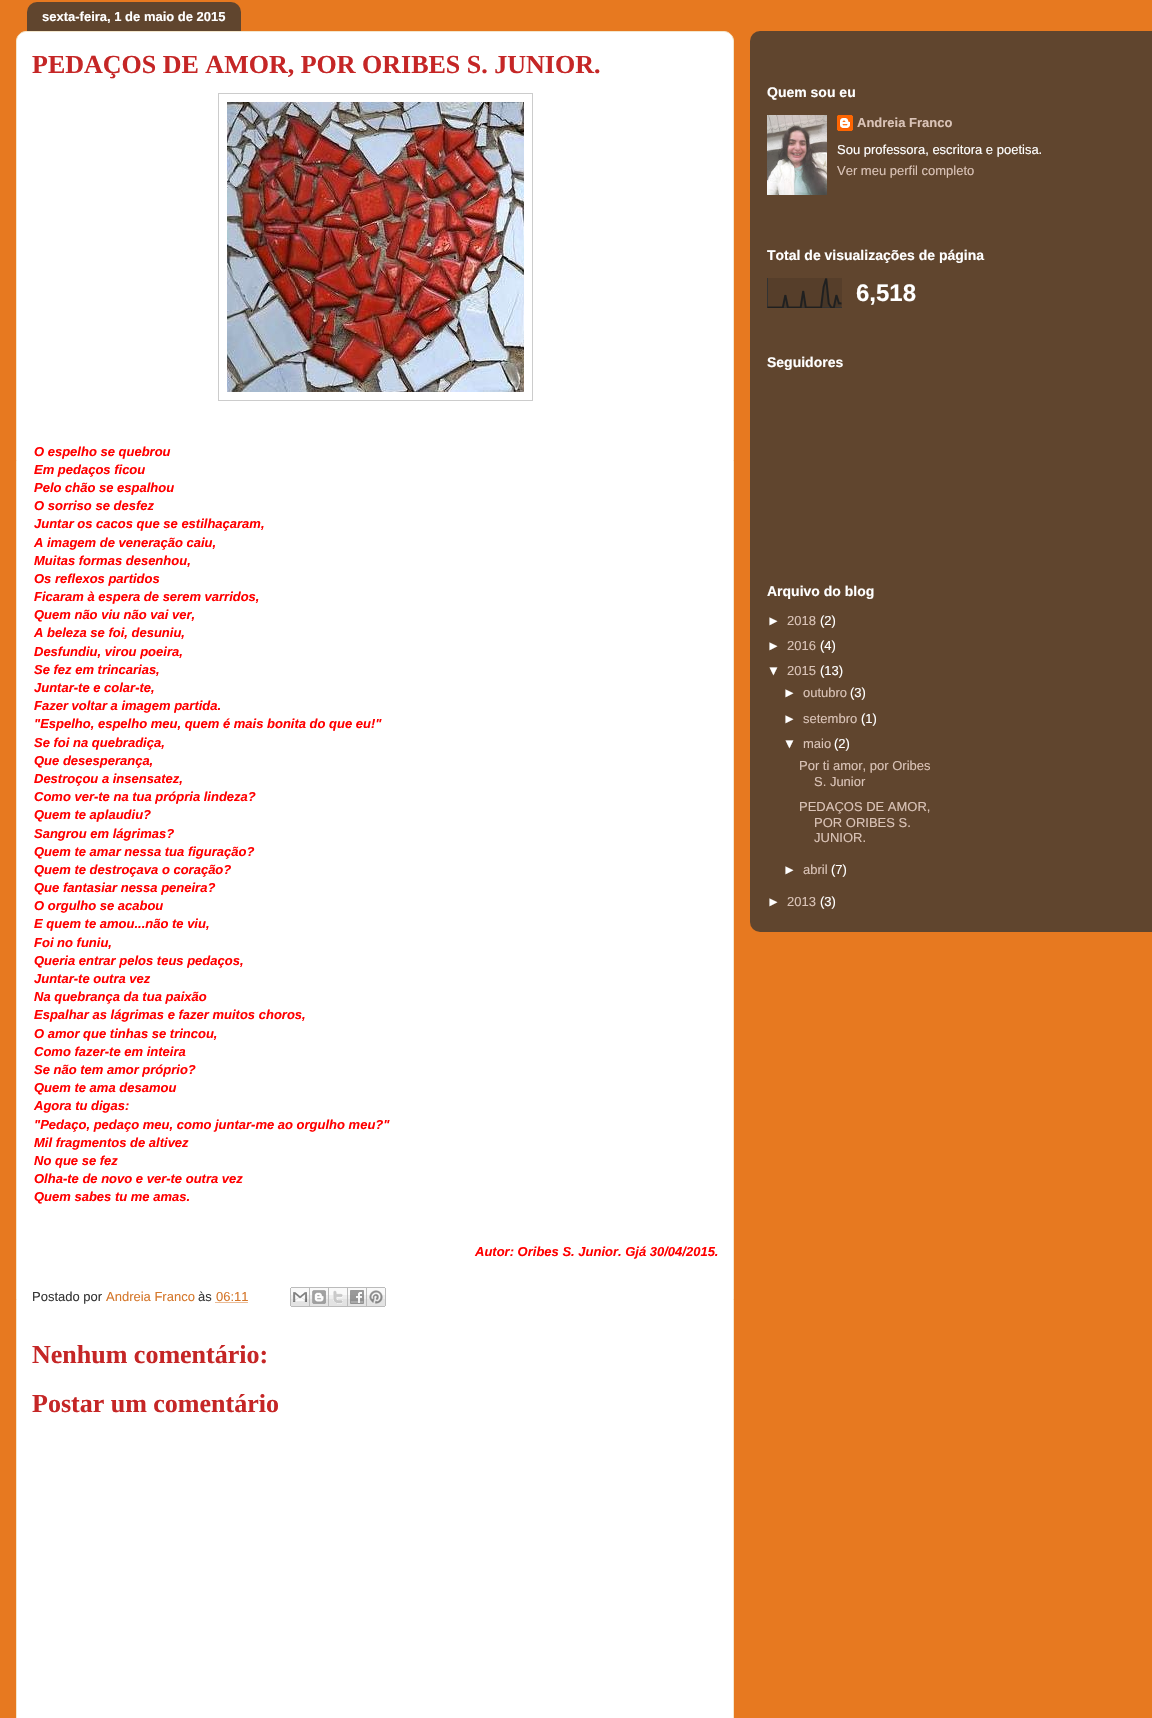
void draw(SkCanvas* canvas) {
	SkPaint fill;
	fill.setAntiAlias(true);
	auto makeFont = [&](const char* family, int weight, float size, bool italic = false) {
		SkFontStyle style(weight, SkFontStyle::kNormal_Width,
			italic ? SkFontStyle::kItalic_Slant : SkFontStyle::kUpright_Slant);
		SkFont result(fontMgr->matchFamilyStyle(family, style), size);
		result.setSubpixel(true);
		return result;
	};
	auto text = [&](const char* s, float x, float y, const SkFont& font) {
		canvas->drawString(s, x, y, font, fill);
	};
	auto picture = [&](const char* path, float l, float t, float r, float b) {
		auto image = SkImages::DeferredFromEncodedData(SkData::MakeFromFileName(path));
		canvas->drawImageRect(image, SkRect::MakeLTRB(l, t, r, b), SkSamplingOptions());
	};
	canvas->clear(0xFFE77920);
	fill.setColor(0xFFFFFFFF);
	canvas->drawPath(SkPathBuilder().moveTo(26, 31.5f).lineTo(724, 31.5f).cubicTo(729, 31.5f, 733.5f, 36, 733.5f, 41).lineTo(733.5f, 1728.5f).lineTo(16.5f, 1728.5f).lineTo(16.5f, 41).cubicTo(16.5f, 36, 21, 31.5f, 26, 31.5f).close().detach(), fill);
	fill.setStyle(SkPaint::kStroke_Style);
	fill.setStrokeWidth(1);
	fill.setColor(0xFFF4E7CC);
	canvas->drawPath(SkPathBuilder().moveTo(26, 31.5f).lineTo(724, 31.5f).cubicTo(729, 31.5f, 733.5f, 36, 733.5f, 41).lineTo(733.5f, 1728.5f).lineTo(16.5f, 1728.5f).lineTo(16.5f, 41).cubicTo(16.5f, 36, 21, 31.5f, 26, 31.5f).close().detach(), fill);
	picture("image0.png", 27, 2, 241, 31);
	fill.setColor(0xFFCCCCCC);
	canvas->drawRect(SkRect::MakeLTRB(218.5f, 93.5f, 532.5f, 400.5f), fill);
	picture("image1.png", 227, 102, 524, 392);
	fill.setColor(0xFFD5772B);
	fill.setPathEffect(SkDashPathEffect::Make({{1, 1}}, 0));
	canvas->drawPath(SkPathBuilder().moveTo(215.5f, 1302.5f).lineTo(248, 1302.5f).detach(), fill);
	fill.setPathEffect(nullptr);
	picture("image2.png", 290, 1287, 310, 1307);
	picture("image3.png", 310, 1287, 329, 1307);
	picture("image4.png", 329, 1287, 348, 1307);
	picture("image5.png", 348, 1287, 367, 1307);
	picture("image6.png", 367, 1287, 386, 1307);
	picture("image7.png", 750, 31, 1152, 932);
	picture("image8.png", 767, 115, 827, 195);
	picture("image9.png", 837, 115, 853, 131);
	picture("image10.png", 767, 278, 842, 308);
	auto font1 = makeFont("Liberation Sans", 700, 13);
	fill.setStyle(SkPaint::kFill_Style);
	fill.setColor(0xFFFFFFFF);
	text("sexta-feira, 1 de maio de 2015", 42, 21, font1);
	auto font2 = makeFont("Liberation Serif", 700, 26);
	fill.setColor(0xFFC52626);
	text("PEDAÇOS DE AMOR, POR ORIBES S. JUNIOR.", 32, 73, font2);
	auto font3 = makeFont("Liberation Sans", 700, 13, true);
	fill.setColor(0xFFFF0000);
	text("O espelho se quebrou", 34, 456, font3);
	text("Em pedaços ficou", 34, 474, font3);
	text("Pelo chão se espalhou", 34, 492, font3);
	text("O sorriso se desfez", 34, 510, font3);
	text("Juntar os cacos que se estilhaçaram,", 34, 528, font3);
	text("A imagem de veneração caiu,", 34, 547, font3);
	text("Muitas formas desenhou,", 34, 565, font3);
	text("Os reflexos partidos", 34, 583, font3);
	text("Ficaram à espera de serem varridos,", 34, 601, font3);
	text("Quem não viu não vai ver,", 34, 619, font3);
	text("A beleza se foi, desuniu,", 34, 637, font3);
	text("Desfundiu, virou poeira,", 34, 656, font3);
	text("Se fez em trincarias,", 34, 674, font3);
	text("Juntar-te e colar-te,", 34, 692, font3);
	text("Fazer voltar a imagem partida.", 34, 710, font3);
	text("\"Espelho, espelho meu, quem é mais bonita do que eu!\"", 34, 728, font3);
	text("Se foi na quebradiça,", 34, 747, font3);
	text("Que desesperança,", 34, 765, font3);
	text("Destroçou a insensatez,", 34, 783, font3);
	text("Como ver-te na tua própria lindeza?", 34, 801, font3);
	text("Quem te aplaudiu?", 34, 819, font3);
	text("Sangrou em lágrimas?", 34, 838, font3);
	text("Quem te amar nessa tua figuração?", 34, 856, font3);
	text("Quem te destroçava o coração?", 34, 874, font3);
	text("Que fantasiar nessa peneira?", 34, 892, font3);
	text("O orgulho se acabou", 34, 910, font3);
	text("E quem te amou...não te viu,", 34, 928, font3);
	text("Foi no funiu,", 34, 947, font3);
	text("Queria entrar pelos teus pedaços,", 34, 965, font3);
	text("Juntar-te outra vez", 34, 983, font3);
	text("Na quebrança da tua paixão", 34, 1001, font3);
	text("Espalhar as lágrimas e fazer muitos choros,", 34, 1019, font3);
	text("O amor que tinhas se trincou,", 34, 1038, font3);
	text("Como fazer-te em inteira", 34, 1056, font3);
	text("Se não tem amor próprio?", 34, 1074, font3);
	text("Quem te ama desamou", 34, 1092, font3);
	text("Agora tu digas:", 34, 1110, font3);
	text("\"Pedaço, pedaço meu, como juntar-me ao orgulho meu?\"", 34, 1129, font3);
	text("Mil fragmentos de altivez", 34, 1147, font3);
	text("No que se fez", 34, 1165, font3);
	text("Olha-te de novo e ver-te outra vez", 34, 1183, font3);
	text("Quem sabes tu me amas.", 34, 1201, font3);
	text("Autor: Oribes S. Junior. Gjá 30/04/2015.", 475, 1256, font3);
	auto font4 = makeFont("Liberation Sans", 400, 13);
	fill.setColor(0xFF363636);
	text("Postado por", 32, 1301, font4);
	fill.setColor(0xFFD5772B);
	text("Andreia Franco", 106, 1301, font4);
	fill.setColor(0xFF363636);
	text("às", 198, 1301, font4);
	fill.setColor(0xFFD5772B);
	text("06:11", 216, 1301, font4);
	fill.setColor(0xFFC52626);
	text("Nenhum comentário:", 32, 1363, font2);
	text("Postar um comentário", 32, 1412, font2);
	auto font5 = makeFont("Liberation Sans", 700, 14);
	fill.setColor(0xFFFFFFFF);
	text("Quem sou eu", 767, 97, font5);
	fill.setColor(0xFFDAC3B7);
	text("Andreia Franco", 857, 127, font1);
	fill.setColor(0xFFFFFFFF);
	text("Sou professora, escritora e poetisa.", 837, 154, font4);
	fill.setColor(0xFFDAC3B7);
	text("Ver meu perfil completo", 837, 175, font4);
	fill.setColor(0xFFFFFFFF);
	text("Total de visualizações de página", 767, 260, font5);
	auto font6 = makeFont("Liberation Sans", 700, 24);
	text("6,518", 856, 301, font6);
	text("Seguidores", 767, 367, font5);
	text("Arquivo do blog", 767, 596, font5);
	text("►", 767, 625, font4);
	fill.setColor(0xFFDAC3B7);
	text("2018", 787, 625, font4);
	fill.setColor(0xFFFFFFFF);
	text("(2)", 820, 625, font4);
	text("►", 767, 650, font4);
	fill.setColor(0xFFDAC3B7);
	text("2016", 787, 650, font4);
	fill.setColor(0xFFFFFFFF);
	text("(4)", 820, 650, font4);
	text("▼", 767, 675, font4);
	fill.setColor(0xFFDAC3B7);
	text("2015", 787, 675, font4);
	fill.setColor(0xFFFFFFFF);
	text("(13)", 820, 675, font4);
	text("►", 783, 697, font4);
	fill.setColor(0xFFDAC3B7);
	text("outubro", 803, 697, font4);
	fill.setColor(0xFFFFFFFF);
	text("(3)", 850, 697, font4);
	text("►", 783, 723, font4);
	fill.setColor(0xFFDAC3B7);
	text("setembro", 803, 723, font4);
	fill.setColor(0xFFFFFFFF);
	text("(1)", 861, 723, font4);
	text("▼", 783, 748, font4);
	fill.setColor(0xFFDAC3B7);
	text("maio", 803, 748, font4);
	fill.setColor(0xFFFFFFFF);
	text("(2)", 834, 748, font4);
	fill.setColor(0xFFDAC3B7);
	text("Por ti amor, por Oribes", 799, 770, font4);
	text("S. Junior", 814, 786, font4);
	text("PEDAÇOS DE AMOR,", 799, 811, font4);
	text("POR ORIBES S.", 814, 827, font4);
	text("JUNIOR.", 814, 842, font4);
	fill.setColor(0xFFFFFFFF);
	text("►", 783, 874, font4);
	fill.setColor(0xFFDAC3B7);
	text("abril", 803, 874, font4);
	fill.setColor(0xFFFFFFFF);
	text("(7)", 831, 874, font4);
	text("►", 767, 906, font4);
	fill.setColor(0xFFDAC3B7);
	text("2013", 787, 906, font4);
	fill.setColor(0xFFFFFFFF);
	text("(3)", 820, 906, font4);
}
